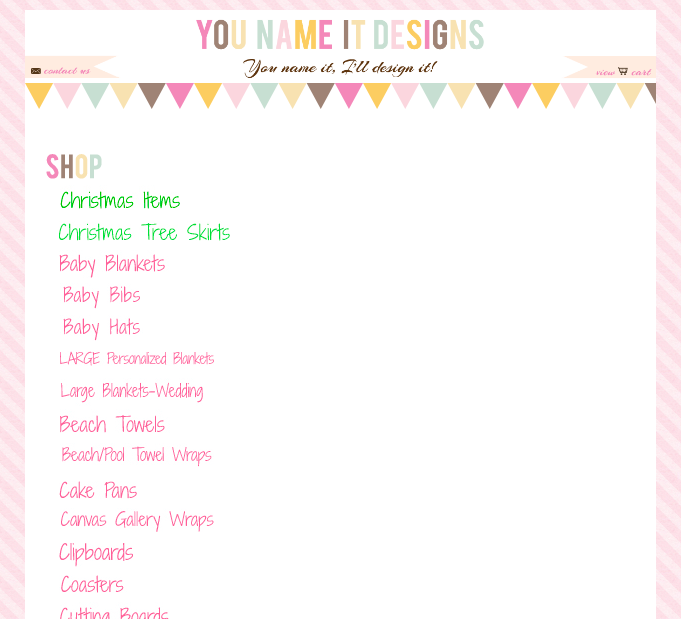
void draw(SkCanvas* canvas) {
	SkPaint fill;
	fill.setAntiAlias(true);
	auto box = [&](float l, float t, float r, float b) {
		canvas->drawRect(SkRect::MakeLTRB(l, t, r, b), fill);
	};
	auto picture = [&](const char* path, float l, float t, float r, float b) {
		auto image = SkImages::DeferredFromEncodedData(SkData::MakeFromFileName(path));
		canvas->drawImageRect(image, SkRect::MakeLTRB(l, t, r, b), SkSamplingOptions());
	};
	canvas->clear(0xFFFFFFFF);
	picture("image0.png", 0, 0, 681, 619);
	picture("image1.png", 25, 10, 656, 82);
	fill.setColor(0xFFFFFFFF);
	box(25, 82, 656, 619);
	picture("image2.png", 25, 83, 656, 109);
	picture("image3.png", 46, 154, 102, 179);
	picture("image4.png", 60, 185, 180, 209);
	picture("image5.png", 59, 221, 230, 241);
	picture("image6.png", 59, 250, 169, 278);
	picture("image7.png", 60, 283, 140, 309);
	picture("image8.png", 60, 315, 143, 341);
	picture("image9.png", 60, 351, 214, 366);
	picture("image10.png", 61, 378, 203, 406);
	picture("image11.png", 60, 409, 170, 433);
	picture("image12.png", 60, 443, 214, 467);
	picture("image13.png", 59, 481, 137, 499);
	picture("image14.png", 60, 508, 214, 532);
	picture("image15.png", 59, 543, 133, 567);
	picture("image16.png", 59, 575, 127, 593);
	picture("image17.png", 60, 602, 169, 619);
}
